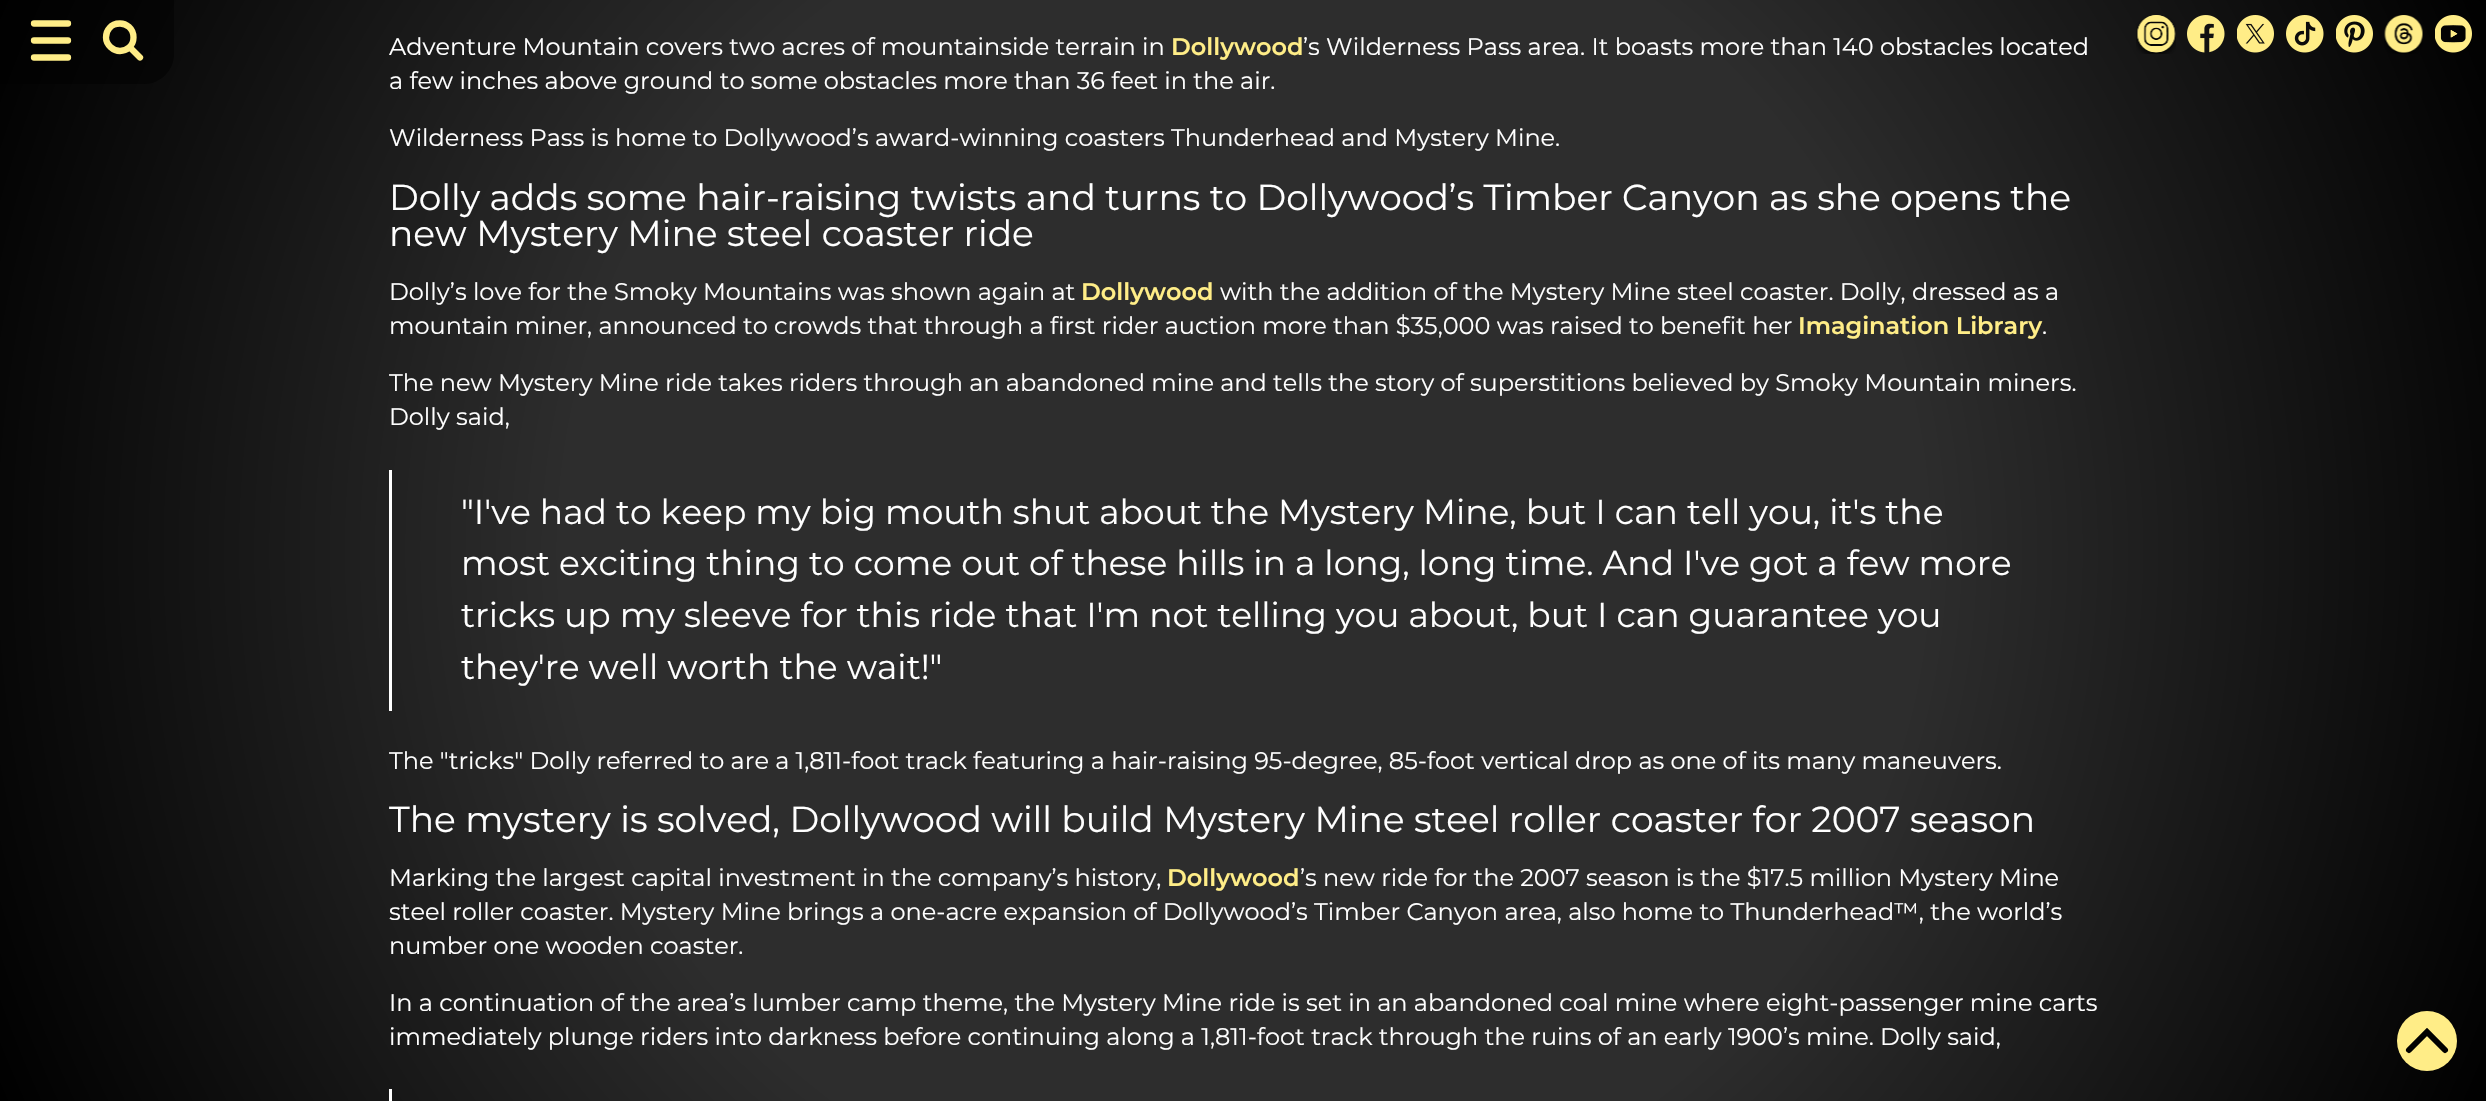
void draw(SkCanvas* canvas) {
	SkPaint fill;
	fill.setAntiAlias(true);
	auto makeFont = [&](const char* family, int weight, float size, bool italic = false) {
		SkFontStyle style(weight, SkFontStyle::kNormal_Width,
			italic ? SkFontStyle::kItalic_Slant : SkFontStyle::kUpright_Slant);
		SkFont result(fontMgr->matchFamilyStyle(family, style), size);
		result.setSubpixel(true);
		return result;
	};
	auto text = [&](const char* s, float x, float y, const SkFont& font) {
		canvas->drawString(s, x, y, font, fill);
	};
	auto box = [&](float l, float t, float r, float b) {
		canvas->drawRect(SkRect::MakeLTRB(l, t, r, b), fill);
	};
	auto picture = [&](const char* path, float l, float t, float r, float b) {
		auto image = SkImages::DeferredFromEncodedData(SkData::MakeFromFileName(path));
		canvas->drawImageRect(image, SkRect::MakeLTRB(l, t, r, b), SkSamplingOptions());
	};
	canvas->clear(0xFFFFFFFF);
	{
		const SkColor colors[] = {0xFF2D2D2D, 0xFF2D2D2D, 0xFF000000};
		const float stops[] = {0, 0.5f, 1};
		fill.setShader(SkGradientShader::MakeRadial({1244, 551}, 1360, colors, stops, 3, SkTileMode::kClamp));
		fill.setAlpha(255);
	}
	box(0, 0, 2486, 1101);
	fill.setShader(nullptr);
	fill.setColor(0x8A000000);
	canvas->drawPath(SkPathBuilder().moveTo(0, 0).lineTo(174, 0).lineTo(174, 54).cubicTo(174, 70.5f, 160.5f, 84, 144, 84).lineTo(0, 84).close().detach(), fill);
	fill.setStyle(SkPaint::kStroke_Style);
	fill.setStrokeWidth(6.3f);
	fill.setStrokeCap(SkPaint::kRound_Cap);
	fill.setColor(0xFFFFED87);
	canvas->drawPath(SkPathBuilder().moveTo(34, 23.5f).lineTo(68, 23.5f).moveTo(34, 40.5f).lineTo(68, 40.5f).moveTo(34, 57.5f).lineTo(68, 57.5f).detach(), fill);
	canvas->drawPath(SkPathBuilder().moveTo(140, 57.5f).lineTo(129.5f, 47).moveTo(109.5f, 28).cubicTo(111, 26, 114, 23.5f, 120, 23.5f).cubicTo(126, 23.5f, 133.5f, 28, 133.5f, 37.5f).cubicTo(133.5f, 46, 126.5f, 51, 120, 51).cubicTo(113.5f, 51, 106, 45, 106, 37.5f).cubicTo(106, 33, 108, 29.5f, 109.5f, 28).detach(), fill);
	fill.setStyle(SkPaint::kFill_Style);
	fill.setColor(0xFFFFFFFF);
	box(389, 470, 392, 711);
	box(389, 1089, 392, 1101);
	picture("image0.png", 2136, 15, 2176, 54);
	picture("image1.png", 2187, 15, 2225, 53);
	picture("image2.png", 2237, 15, 2274, 53);
	picture("image3.png", 2286, 15, 2324, 53);
	picture("image4.png", 2336, 15, 2373, 53);
	picture("image5.png", 2384, 15, 2423, 54);
	picture("image6.png", 2435, 15, 2472, 53);
	fill.setColor(0xFFFFED87);
	canvas->drawCircle(2427, 1041, 30, fill);
	fill.setStyle(SkPaint::kStroke_Style);
	fill.setStrokeWidth(6);
	fill.setColor(0xFF000000);
	canvas->drawPath(SkPathBuilder().moveTo(2409, 1050).lineTo(2427, 1032).lineTo(2445, 1050).detach(), fill);
	auto font1 = makeFont("Montserrat", 400, 24);
	fill.setStyle(SkPaint::kFill_Style);
	fill.setColor(0xFFFFFFFF);
	text("Adventure Mountain covers two acres of mountainside terrain in", 389, 55, font1);
	auto font2 = makeFont("Montserrat", 600, 24);
	fill.setColor(0xFFFFED87);
	text("Dollywood", 1171, 55, font2);
	fill.setColor(0xFFFFFFFF);
	text("’s Wilderness Pass area. It boasts more than 140 obstacles located", 1303, 55, font1);
	text("a few inches above ground to some obstacles more than 36 feet in the air.", 389, 89, font1);
	text("Wilderness Pass is home to Dollywood’s award-winning coasters Thunderhead and Mystery Mine.", 389, 146, font1);
	auto font3 = makeFont("Montserrat", 400, 36);
	text("Dolly adds some hair-raising twists and turns to Dollywood’s Timber Canyon as she opens the", 389, 210, font3);
	text("new Mystery Mine steel coaster ride", 389, 246, font3);
	text("Dolly’s love for the Smoky Mountains was shown again at", 389, 300, font1);
	fill.setColor(0xFFFFED87);
	text("Dollywood", 1081, 300, font2);
	fill.setColor(0xFFFFFFFF);
	text("with the addition of the Mystery Mine steel coaster. Dolly, dressed as a", 1220, 300, font1);
	text("mountain miner, announced to crowds that through a first rider auction more than $35,000 was raised to benefit her", 389, 334, font1);
	fill.setColor(0xFFFFED87);
	text("Imagination Library", 1798, 334, font2);
	fill.setColor(0xFFFFFFFF);
	text(".", 2042, 334, font1);
	text("The new Mystery Mine ride takes riders through an abandoned mine and tells the story of superstitions believed by Smoky Mountain miners.", 389, 391, font1);
	text("Dolly said,", 389, 425, font1);
	auto font4 = makeFont("Montserrat", 400, 34.5f);
	text("\"I've had to keep my big mouth shut about the Mystery Mine, but I can tell you, it's the", 461, 524, font4);
	text("most exciting thing to come out of these hills in a long, long time. And I've got a few more", 461, 575, font4);
	text("tricks up my sleeve for this ride that I'm not telling you about, but I can guarantee you", 461, 627, font4);
	text("they're well worth the wait!\"", 461, 679, font4);
	text("The \"tricks\" Dolly referred to are a 1,811-foot track featuring a hair-raising 95-degree, 85-foot vertical drop as one of its many maneuvers.", 389, 769, font1);
	text("The mystery is solved, Dollywood will build Mystery Mine steel roller coaster for 2007 season", 389, 832, font3);
	text("Marking the largest capital investment in the company’s history,", 389, 886, font1);
	fill.setColor(0xFFFFED87);
	text("Dollywood", 1167, 886, font2);
	fill.setColor(0xFFFFFFFF);
	text("’s new ride for the 2007 season is the $17.5 million Mystery Mine", 1300, 886, font1);
	text("steel roller coaster. Mystery Mine brings a one-acre expansion of Dollywood’s Timber Canyon area, also home to Thunderhead™, the world’s", 389, 920, font1);
	text("number one wooden coaster.", 389, 954, font1);
	text("In a continuation of the area’s lumber camp theme, the Mystery Mine ride is set in an abandoned coal mine where eight-passenger mine carts", 389, 1011, font1);
	text("immediately plunge riders into darkness before continuing along a 1,811-foot track through the ruins of an early 1900’s mine. Dolly said,", 389, 1045, font1);
}
